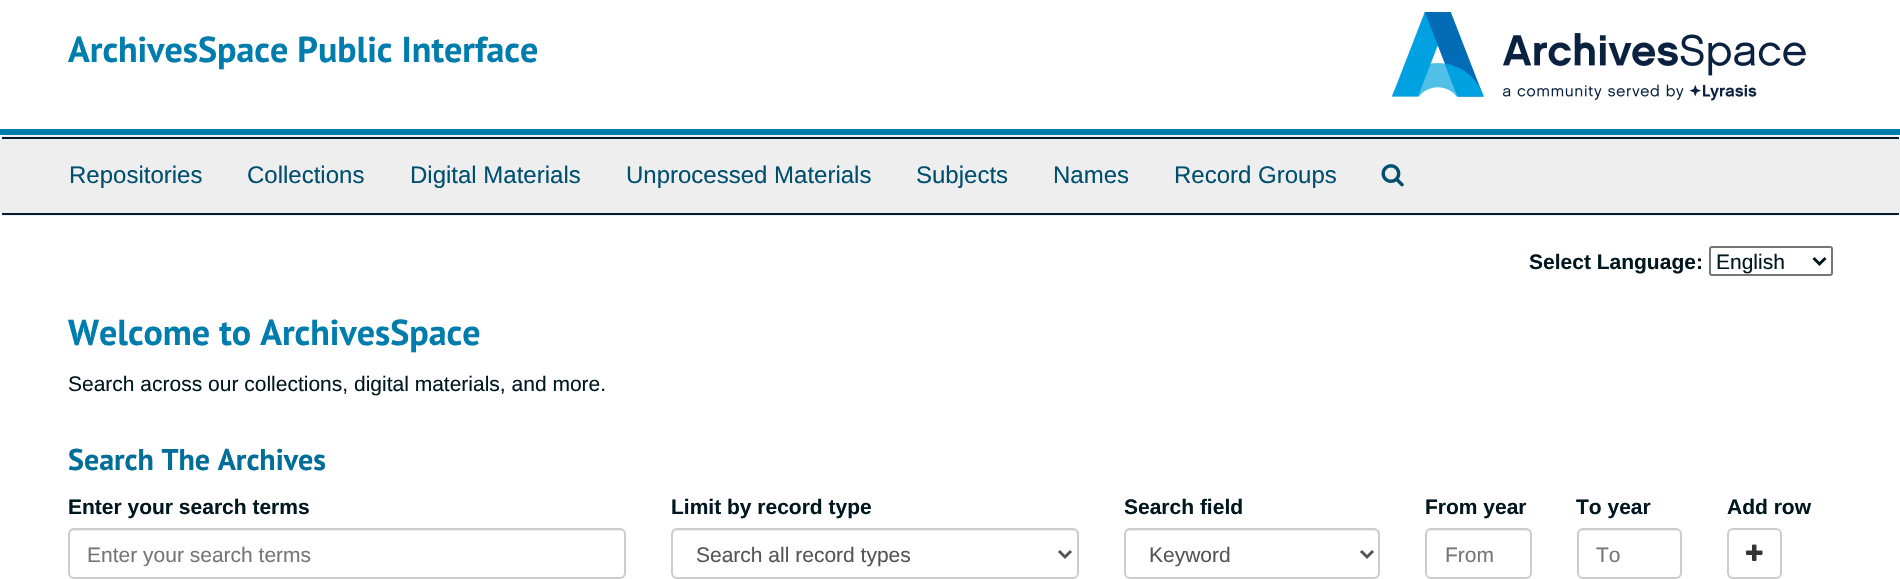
void draw(SkCanvas* canvas) {
	SkPaint fill;
	fill.setAntiAlias(true);
	auto makeFont = [&](const char* family, int weight, float size, bool italic = false) {
		SkFontStyle style(weight, SkFontStyle::kNormal_Width,
			italic ? SkFontStyle::kItalic_Slant : SkFontStyle::kUpright_Slant);
		SkFont result(fontMgr->matchFamilyStyle(family, style), size);
		result.setSubpixel(true);
		return result;
	};
	auto text = [&](const char* s, float x, float y, const SkFont& font) {
		canvas->drawString(s, x, y, font, fill);
	};
	auto box = [&](float l, float t, float r, float b) {
		canvas->drawRect(SkRect::MakeLTRB(l, t, r, b), fill);
	};
	auto picture = [&](const char* path, float l, float t, float r, float b) {
		auto image = SkImages::DeferredFromEncodedData(SkData::MakeFromFileName(path));
		canvas->drawImageRect(image, SkRect::MakeLTRB(l, t, r, b), SkSamplingOptions());
	};
	canvas->clear(0xFFFFFFFF);
	fill.setColor(0xFF007CAD);
	box(0, 129, 1900, 135);
	picture("image0.png", 1392, 12, 1806, 101);
	fill.setColor(0xFFEEEEEE);
	canvas->drawRoundRect(SkRect::MakeLTRB(1, 136, 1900, 215), 5, 5, fill);
	fill.setStyle(SkPaint::kStroke_Style);
	fill.setStrokeWidth(2);
	canvas->drawRoundRect(SkRect::MakeLTRB(1, 136, 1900, 215), 5, 5, fill);
	fill.setStyle(SkPaint::kFill_Style);
	fill.setColor(0xFF041C2F);
	box(2, 137, 1899, 139);
	box(2, 213, 1899, 215);
	picture("image1.png", 1381, 164, 1404, 187);
	fill.setStyle(SkPaint::kStroke_Style);
	fill.setColor(0xFF767676);
	canvas->drawRoundRect(SkRect::MakeLTRB(1710, 247, 1832, 275), 2, 2, fill);
	fill.setStrokeWidth(3);
	fill.setColor(0xFF00171F);
	canvas->drawPath(SkPathBuilder().moveTo(1813.5f, 258).lineTo(1819.5f, 264).lineTo(1825.5f, 258).detach(), fill);
	fill.setStyle(SkPaint::kFill_Style);
	fill.setColor(0xFFECECEC);
	canvas->drawPath(SkPathBuilder().moveTo(74, 531).lineTo(620, 531).cubicTo(622, 531, 624, 533, 624, 536).cubicTo(624, 533, 622, 530, 619, 530).lineTo(74, 530).cubicTo(71, 530, 69, 533, 69, 536).cubicTo(69, 533, 71, 531, 74, 531).close().detach(), fill);
	fill.setStyle(SkPaint::kStroke_Style);
	fill.setStrokeWidth(2);
	fill.setColor(0xFFCCCCCC);
	canvas->drawRoundRect(SkRect::MakeLTRB(69, 529, 625, 578), 5, 5, fill);
	fill.setStyle(SkPaint::kFill_Style);
	fill.setColor(0xFFECECEC);
	canvas->drawPath(SkPathBuilder().moveTo(676, 531).lineTo(1072, 531).cubicTo(1075, 531, 1077, 533, 1077, 536).lineTo(1077, 535).cubicTo(1077, 532, 1075, 530, 1072, 530).lineTo(677, 530).cubicTo(674, 530, 672, 532, 672, 535).lineTo(672, 536).cubicTo(672, 533, 674, 531, 676, 531).close().detach(), fill);
	fill.setStyle(SkPaint::kStroke_Style);
	fill.setColor(0xFFCCCCCC);
	canvas->drawRoundRect(SkRect::MakeLTRB(672, 529, 1078, 578), 5, 5, fill);
	fill.setStrokeWidth(3);
	fill.setColor(0xFF555555);
	canvas->drawPath(SkPathBuilder().moveTo(1059, 551).lineTo(1065, 557).lineTo(1071, 551).detach(), fill);
	fill.setStyle(SkPaint::kFill_Style);
	fill.setColor(0xFFECECEC);
	canvas->drawPath(SkPathBuilder().moveTo(1130, 531).lineTo(1374, 531).cubicTo(1376, 531, 1378, 533, 1378, 536).lineTo(1378, 574).lineTo(1377, 577).cubicTo(1378, 576, 1379, 574, 1379, 573).lineTo(1379, 535).cubicTo(1379, 532, 1377, 530, 1374, 530).lineTo(1130, 530).cubicTo(1127, 530, 1125, 532, 1125, 535).lineTo(1125, 536).cubicTo(1125, 533, 1127, 531, 1130, 531).close().detach(), fill);
	fill.setStyle(SkPaint::kStroke_Style);
	fill.setStrokeWidth(2);
	fill.setColor(0xFFCCCCCC);
	canvas->drawRoundRect(SkRect::MakeLTRB(1125, 529, 1379, 578), 5, 5, fill);
	fill.setStrokeWidth(3);
	fill.setColor(0xFF555555);
	canvas->drawPath(SkPathBuilder().moveTo(1361, 551).lineTo(1367, 557).lineTo(1373, 551).detach(), fill);
	fill.setStyle(SkPaint::kFill_Style);
	fill.setColor(0xFFECECEC);
	canvas->drawPath(SkPathBuilder().moveTo(1431, 531).lineTo(1526, 531).cubicTo(1528, 531, 1530, 533, 1530, 536).lineTo(1530, 535).cubicTo(1530, 532, 1528, 530, 1525, 530).lineTo(1432, 530).cubicTo(1430, 530, 1429, 531, 1428, 532).close().detach(), fill);
	fill.setStyle(SkPaint::kStroke_Style);
	fill.setStrokeWidth(2);
	fill.setColor(0xFFCCCCCC);
	canvas->drawRoundRect(SkRect::MakeLTRB(1426, 529, 1531, 578), 5, 5, fill);
	fill.setStyle(SkPaint::kFill_Style);
	fill.setColor(0xFFECECEC);
	canvas->drawPath(SkPathBuilder().moveTo(1582, 531).lineTo(1676, 531).cubicTo(1678, 531, 1680, 533, 1680, 536).cubicTo(1680, 526, 1665, 530, 1660, 530).lineTo(1598, 530).cubicTo(1593, 530, 1578, 526, 1578, 536).cubicTo(1578, 533, 1580, 531, 1582, 531).close().detach(), fill);
	fill.setStyle(SkPaint::kStroke_Style);
	fill.setColor(0xFFCCCCCC);
	canvas->drawRoundRect(SkRect::MakeLTRB(1578, 529, 1681, 578), 5, 5, fill);
	canvas->drawRoundRect(SkRect::MakeLTRB(1728, 529, 1781, 578), 5, 5, fill);
	picture("image2.png", 1746, 544, 1763, 561);
	auto font1 = makeFont("PT Sans", 700, 36);
	fill.setStyle(SkPaint::kFill_Style);
	fill.setColor(0xFF007CAD);
	text("ArchivesSpace Public Interface", 68, 62, font1);
	auto font2 = makeFont("Liberation Sans", 400, 24);
	fill.setColor(0xFF004F6F);
	text("Repositories", 69, 183, font2);
	text("Collections", 247, 183, font2);
	text("Digital Materials", 410, 183, font2);
	text("Unprocessed Materials", 626, 183, font2);
	text("Subjects", 916, 183, font2);
	text("Names", 1053, 183, font2);
	text("Record Groups", 1174, 183, font2);
	auto font3 = makeFont("Liberation Sans", 700, 21);
	fill.setColor(0xFF00171F);
	text("Select Language:", 1529, 269, font3);
	auto font4 = makeFont("Liberation Sans", 400, 21);
	text("English", 1716, 269, font4);
	fill.setColor(0xFF007CAD);
	text("Welcome to ArchivesSpace", 68, 345, font1);
	fill.setColor(0xFF00171F);
	text("Search across our collections, digital materials, and more.", 68, 391, font4);
	auto font5 = makeFont("PT Sans", 700, 30);
	fill.setColor(0xFF006E99);
	text("Search The Archives", 68, 470, font5);
	fill.setColor(0xFF00171F);
	text("Enter your search terms", 68, 514, font3);
	canvas->save();
	canvas->clipRect(SkRect::MakeLTRB(87, 542, 606, 566));
	fill.setColor(0xFF767676);
	text("Enter your search terms", 87, 562, font4);
	canvas->restore();
	fill.setColor(0xFF00171F);
	text("Limit by record type", 671, 514, font3);
	fill.setColor(0xFF555555);
	text("Search all record types", 696, 562, font4);
	fill.setColor(0xFF00171F);
	text("Search field", 1124, 514, font3);
	fill.setColor(0xFF555555);
	text("Keyword", 1149, 562, font4);
	fill.setColor(0xFF00171F);
	text("From year", 1425, 514, font3);
	fill.setColor(0xFF767676);
	text("From", 1445, 562, font4);
	fill.setColor(0xFF00171F);
	text("To year", 1576, 514, font3);
	fill.setColor(0xFF767676);
	text("To", 1596, 562, font4);
	fill.setColor(0xFF00171F);
	text("Add row", 1727, 514, font3);
}
